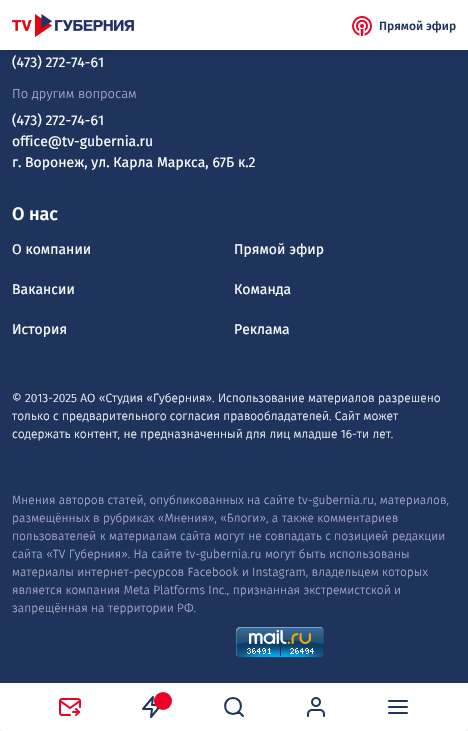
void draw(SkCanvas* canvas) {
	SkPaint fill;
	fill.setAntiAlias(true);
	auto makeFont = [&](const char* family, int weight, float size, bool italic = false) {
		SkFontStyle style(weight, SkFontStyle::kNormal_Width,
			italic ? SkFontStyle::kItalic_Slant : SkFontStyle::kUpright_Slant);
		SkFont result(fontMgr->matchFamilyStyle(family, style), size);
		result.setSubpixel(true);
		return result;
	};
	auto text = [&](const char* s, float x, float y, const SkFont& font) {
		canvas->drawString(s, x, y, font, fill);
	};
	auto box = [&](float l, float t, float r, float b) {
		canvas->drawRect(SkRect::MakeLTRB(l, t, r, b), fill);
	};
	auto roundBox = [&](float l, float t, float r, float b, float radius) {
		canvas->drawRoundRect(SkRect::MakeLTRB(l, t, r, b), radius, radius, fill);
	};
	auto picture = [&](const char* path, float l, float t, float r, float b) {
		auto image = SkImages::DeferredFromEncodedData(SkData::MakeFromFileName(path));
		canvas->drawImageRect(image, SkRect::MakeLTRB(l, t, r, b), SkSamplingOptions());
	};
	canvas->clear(0xFFFFFFFF);
	fill.setColor(0xFF1E345D);
	box(0, 50, 468, 683);
	fill.setColor(0x1A000000);
	fill.setMaskFilter(SkMaskFilter::MakeBlur(kNormal_SkBlurStyle, 3));
	canvas->drawRect(SkRect::MakeLTRB(0, 3, 468, 53), fill);
	fill.setMaskFilter(nullptr);
	fill.setColor(0xFFFFFFFF);
	box(0, 0, 468, 50);
	picture("image0.png", 12, 14, 134, 37);
	picture("image1.png", 352, 16, 372, 36);
	picture("image2.png", 236, 627, 324, 658);
	fill.setColor(0x1A000000);
	fill.setMaskFilter(SkMaskFilter::MakeBlur(kNormal_SkBlurStyle, 3));
	canvas->drawRoundRect(SkRect::MakeLTRB(0, 686, 468, 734), 4, 4, fill);
	fill.setMaskFilter(nullptr);
	fill.setColor(0xFFFFFFFF);
	roundBox(0, 683, 468, 731, 4);
	picture("image3.png", 59, 698, 81, 716);
	fill.setStyle(SkPaint::kStroke_Style);
	fill.setStrokeWidth(2);
	fill.setStrokeCap(SkPaint::kRound_Cap);
	fill.setStrokeJoin(SkPaint::kRound_Join);
	fill.setColor(0xFF1E345D);
	canvas->drawPath(SkPathBuilder().moveTo(153, 697).lineTo(143, 709).lineTo(152, 709).lineTo(151, 717).lineTo(161, 705).lineTo(152, 705).close().detach(), fill);
	fill.setStyle(SkPaint::kFill_Style);
	fill.setColor(0xFFEB0028);
	canvas->drawCircle(163, 701, 9, fill);
	fill.setStyle(SkPaint::kStroke_Style);
	fill.setColor(0xFF1E345D);
	canvas->drawPath(SkPathBuilder().moveTo(233, 714).cubicTo(243.5f, 714, 243.5f, 698, 233, 698).cubicTo(222.5f, 698, 222.5f, 714, 233, 714).close().moveTo(243, 716).lineTo(238.5f, 711.5f).detach(), fill);
	picture("image4.png", 307, 697, 325, 717);
	canvas->drawPath(SkPathBuilder().moveTo(389, 707).lineTo(407, 707).moveTo(389, 701).lineTo(407, 701).moveTo(389, 713).lineTo(407, 713).detach(), fill);
	auto font1 = makeFont("Fira Sans", 500, 12);
	fill.setStyle(SkPaint::kFill_Style);
	text("Прямой эфир", 379, 30, font1);
	auto font2 = makeFont("Fira Sans", 400, 14);
	fill.setColor(0xFFFFFFFF);
	text("(473) 272-74-61", 12, 67, font2);
	auto font3 = makeFont("Fira Sans", 300, 13);
	fill.setColor(0xFFB5B1D3);
	text("По другим вопросам", 12, 98, font3);
	fill.setColor(0xFFFFFFFF);
	text("(473) 272-74-61", 12, 125, font2);
	text("office@tv-gubernia.ru", 12, 146, font2);
	text("г. Воронеж, ул. Карла Маркса, 67Б к.2", 12, 167, font2);
	auto font4 = makeFont("Fira Sans", 500, 18);
	text("О нас", 12, 220, font4);
	text("О компании", 12, 254, font2);
	text("Прямой эфир", 234, 254, font2);
	text("Вакансии", 12, 294, font2);
	text("Команда", 234, 294, font2);
	text("История", 12, 334, font2);
	text("Реклама", 234, 334, font2);
	auto font5 = makeFont("Fira Sans", 300, 12);
	text("© 2013-2025 АО «Студия «Губерния». Использование материалов разрешено", 12, 402, font5);
	text("только с предварительного согласия правообладателей. Сайт может", 12, 420, font5);
	text("содержать контент, не предназначенный для лиц младше 16-ти лет.", 12, 438, font5);
	fill.setColor(0xFFB5B1D3);
	text("Мнения авторов статей, опубликованных на сайте tv-gubernia.ru, материалов,", 12, 504, font5);
	text("размещённых в рубриках «Мнения», «Блоги», а также комментариев", 12, 522, font5);
	text("пользователей к материалам сайта могут не совпадать с позицией редакции", 12, 540, font5);
	text("сайта «TV Губерния». На сайте tv-gubernia.ru могут быть использованы", 12, 558, font5);
	text("материалы интернет-ресурсов Facebook и Instagram, владельцем которых", 12, 576, font5);
	text("является компания Meta Platforms Inc., признанная экстремистской и", 12, 594, font5);
	text("запрещённая на территории РФ.", 12, 612, font5);
}
